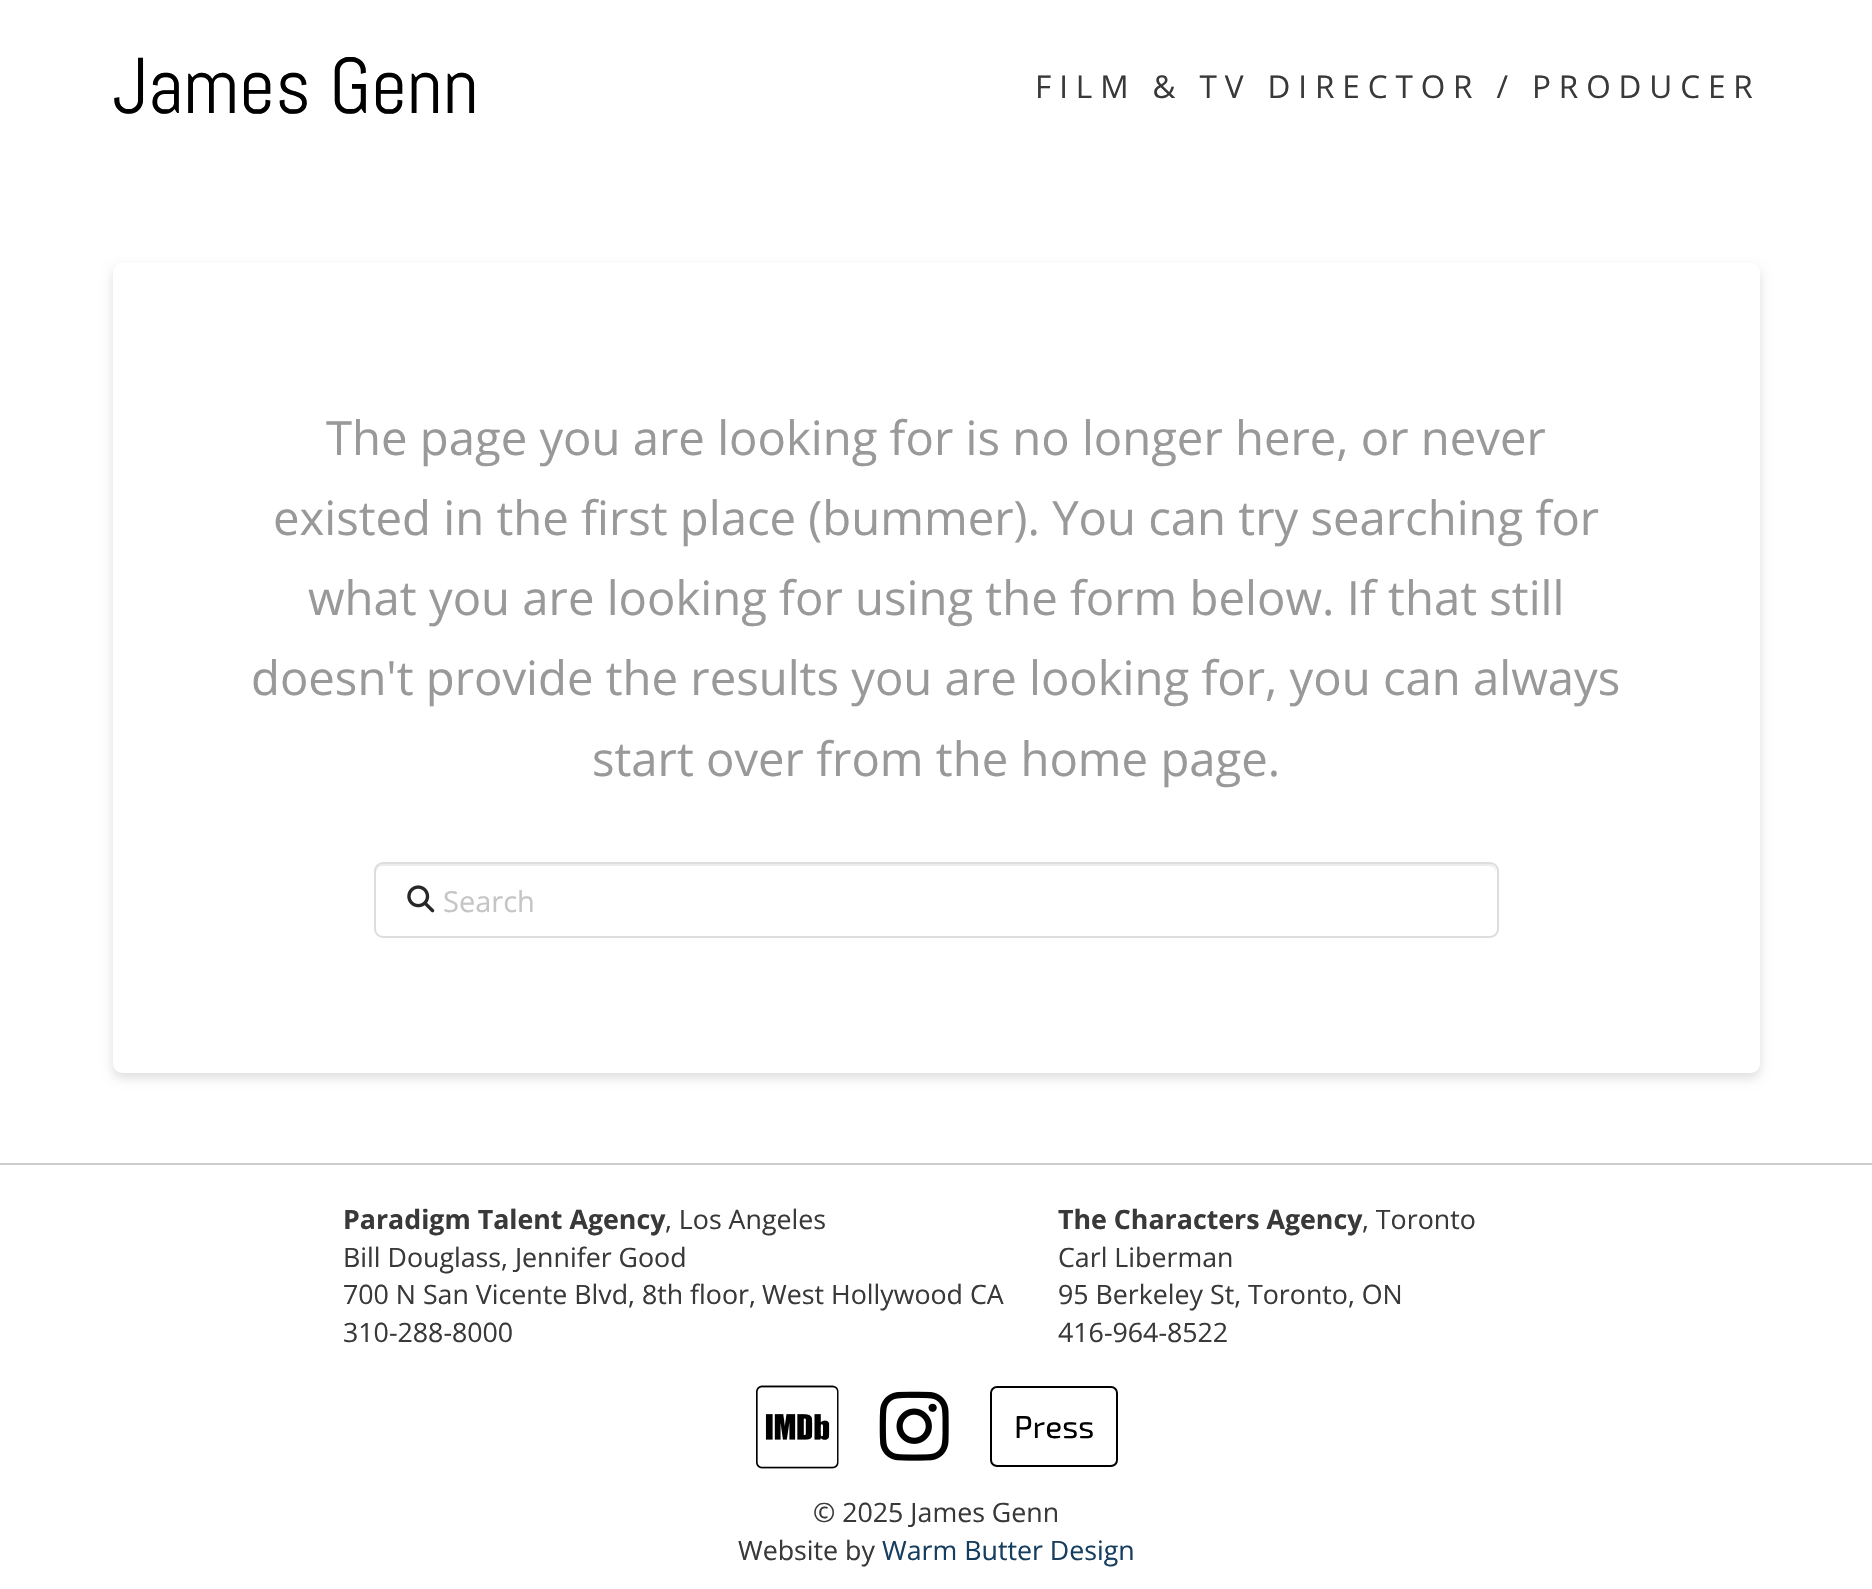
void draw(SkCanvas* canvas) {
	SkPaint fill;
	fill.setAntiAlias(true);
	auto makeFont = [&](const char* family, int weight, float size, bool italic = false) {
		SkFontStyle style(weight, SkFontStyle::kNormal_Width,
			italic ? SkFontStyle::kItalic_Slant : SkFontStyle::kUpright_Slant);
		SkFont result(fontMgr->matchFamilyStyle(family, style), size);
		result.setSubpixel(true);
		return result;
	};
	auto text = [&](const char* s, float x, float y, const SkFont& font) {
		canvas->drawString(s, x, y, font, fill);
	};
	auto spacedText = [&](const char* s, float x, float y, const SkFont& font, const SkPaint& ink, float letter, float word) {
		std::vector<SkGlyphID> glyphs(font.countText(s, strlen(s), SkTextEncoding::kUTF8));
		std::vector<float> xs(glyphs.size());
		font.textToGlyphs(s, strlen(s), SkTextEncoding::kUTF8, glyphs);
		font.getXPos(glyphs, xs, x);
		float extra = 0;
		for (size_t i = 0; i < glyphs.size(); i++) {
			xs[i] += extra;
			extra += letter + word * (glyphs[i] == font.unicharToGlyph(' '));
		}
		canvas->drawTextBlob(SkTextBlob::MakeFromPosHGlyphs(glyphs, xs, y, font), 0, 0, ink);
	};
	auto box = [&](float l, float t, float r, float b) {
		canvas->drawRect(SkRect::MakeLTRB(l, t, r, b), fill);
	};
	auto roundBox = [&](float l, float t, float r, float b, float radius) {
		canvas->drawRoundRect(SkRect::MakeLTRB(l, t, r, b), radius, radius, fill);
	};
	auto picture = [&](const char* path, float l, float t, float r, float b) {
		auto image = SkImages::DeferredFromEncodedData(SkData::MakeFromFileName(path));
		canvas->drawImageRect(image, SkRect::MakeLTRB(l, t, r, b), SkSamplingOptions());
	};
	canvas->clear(0xFFFFFFFF);
	fill.setColor(0x21000000);
	fill.setMaskFilter(SkMaskFilter::MakeBlur(kNormal_SkBlurStyle, 5.5f));
	canvas->drawRoundRect(SkRect::MakeLTRB(113, 268, 1760, 1078), 9, 9, fill);
	fill.setMaskFilter(nullptr);
	fill.setColor(0xFFFFFFFF);
	roundBox(113, 263, 1760, 1073, 9);
	fill.setColor(0xFFECECEC);
	canvas->drawPath(SkPathBuilder().moveTo(382, 866).lineTo(1490, 866).cubicTo(1493, 866, 1496, 869, 1496, 873).lineTo(1496, 871).cubicTo(1496, 867, 1493, 864, 1489, 864).lineTo(383, 864).cubicTo(379, 864, 376, 867, 376, 871).lineTo(376, 873).cubicTo(376, 869, 379, 866, 382, 866).close().detach(), fill);
	fill.setStyle(SkPaint::kStroke_Style);
	fill.setStrokeWidth(2);
	fill.setColor(0xFFDDDDDD);
	canvas->drawRoundRect(SkRect::MakeLTRB(375, 863, 1498, 937), 8, 8, fill);
	picture("image0.png", 407, 885, 435, 913);
	fill.setStyle(SkPaint::kFill_Style);
	fill.setColor(0xFFCCCCCC);
	box(0, 1163, 1872, 1165);
	picture("image1.png", 756, 1385, 839, 1469);
	picture("image2.png", 879, 1391, 949, 1461);
	fill.setStyle(SkPaint::kStroke_Style);
	fill.setColor(0xFF000000);
	canvas->drawRoundRect(SkRect::MakeLTRB(991, 1387, 1117, 1466), 6, 6, fill);
	auto font1 = makeFont("Abel", 400, 78.75f);
	fill.setStyle(SkPaint::kFill_Style);
	text("James Genn", 112, 113, font1);
	auto font2 = makeFont("Open Sans", 400, 31.5f);
	fill.setColor(0xFF393939);
	spacedText("FILM & TV DIRECTOR / PRODUCER", 1035, 98, font2, fill, 7.9f, 0);
	auto font3 = makeFont("Open Sans", 400, 47.25f);
	fill.setColor(0xFF999999);
	text("The page you are looking for is no longer here, or never", 326, 455, font3);
	text("existed in the first place (bummer). You can try searching for", 273, 535, font3);
	text("what you are looking for using the form below. If that still", 308, 615, font3);
	text("doesn't provide the results you are looking for, you can always", 251, 695, font3);
	text("start over from the home page.", 592, 776, font3);
	auto font4 = makeFont("Open Sans", 400, 29);
	fill.setColor(0xFFC5C5C5);
	text("Search", 443, 912, font4);
	auto font5 = makeFont("Open Sans", 700, 26.75f);
	fill.setColor(0xFF393939);
	text("Paradigm Talent Agency", 343, 1229, font5);
	auto font6 = makeFont("Open Sans", 400, 26.75f);
	text(", Los Angeles", 665, 1229, font6);
	text("Bill Douglass, Jennifer Good", 343, 1267, font6);
	text("700 N San Vicente Blvd, 8th floor,", 343, 1304, font6);
	text("West Hollywood CA", 762, 1304, font6);
	text("310-288-8000", 343, 1342, font6);
	text("The Characters Agency", 1058, 1229, font5);
	text(", Toronto", 1362, 1229, font6);
	text("Carl Liberman", 1058, 1267, font6);
	text("95 Berkeley St, Toronto, ON", 1058, 1304, font6);
	text("416-964-8522", 1058, 1342, font6);
	auto font7 = makeFont("Exo 2", 400, 31.5f);
	fill.setColor(0xFF000000);
	text("Press", 1014, 1438, font7);
	fill.setColor(0xFF393939);
	text("© 2025 James Genn", 813, 1522, font6);
	text("Website by", 738, 1560, font6);
	fill.setColor(0xFF163E5F);
	text("Warm Butter Design", 882, 1560, font6);
}
